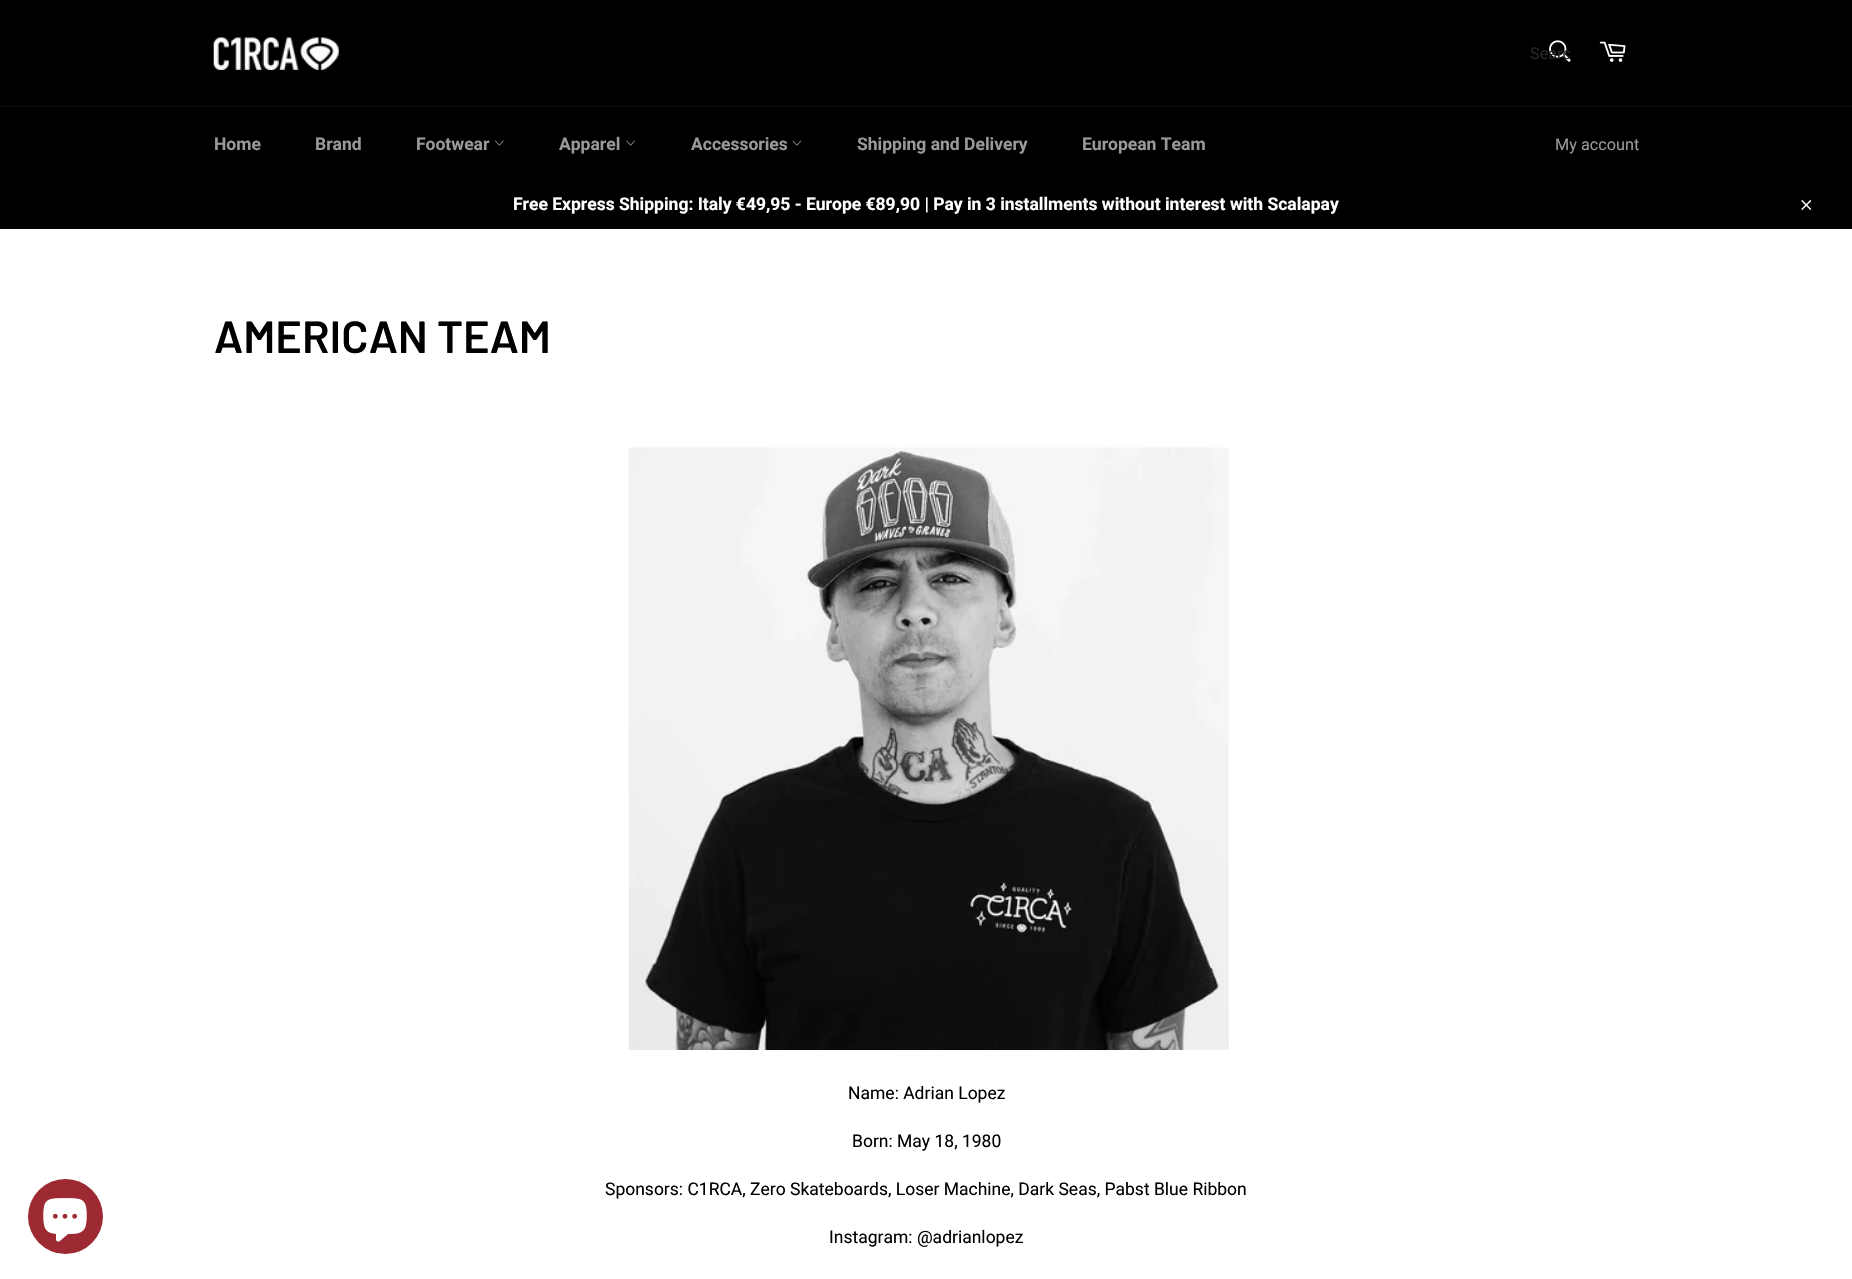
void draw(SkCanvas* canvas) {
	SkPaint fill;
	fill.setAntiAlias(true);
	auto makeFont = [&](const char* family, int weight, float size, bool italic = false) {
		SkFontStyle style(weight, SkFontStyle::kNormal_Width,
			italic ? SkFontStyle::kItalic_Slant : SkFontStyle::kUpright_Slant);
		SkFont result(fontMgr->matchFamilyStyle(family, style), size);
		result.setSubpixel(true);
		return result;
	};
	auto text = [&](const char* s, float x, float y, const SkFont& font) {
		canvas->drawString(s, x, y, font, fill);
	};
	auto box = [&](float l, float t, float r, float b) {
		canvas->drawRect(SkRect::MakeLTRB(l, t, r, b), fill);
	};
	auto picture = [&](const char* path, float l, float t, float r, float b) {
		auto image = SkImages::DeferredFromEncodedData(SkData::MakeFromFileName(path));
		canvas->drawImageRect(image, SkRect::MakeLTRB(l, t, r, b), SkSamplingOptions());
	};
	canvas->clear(0xFFFFFFFF);
	fill.setColor(0xFF000000);
	box(0, 0, 1852, 229);
	picture("image0.png", 213, 37, 339, 70);
	picture("image1.png", 1549, 40, 1571, 62);
	picture("image2.png", 1599, 41, 1626, 62);
	fill.setColor(0xFF0D0D0D);
	box(0, 106, 1852, 107);
	picture("image3.png", 495, 140, 504, 146);
	picture("image4.png", 626, 140, 635, 146);
	picture("image5.png", 792, 140, 802, 146);
	picture("image6.png", 1801, 200, 1812, 210);
	fill.setColor(0xFF9D2A32);
	canvas->drawCircle(65.5f, 1216.5f, 37.5f, fill);
	picture("image7.png", 43, 1198, 87, 1242);
	picture("image8.png", 628, 447, 1229, 1050);
	canvas->save();
	canvas->clipRect(SkRect::MakeLTRB(1530, 44, 1570, 63));
	auto font1 = makeFont("Roboto", 400, 16.25f);
	fill.setColor(0xFF282828);
	text("Searc", 1530, 59, font1);
	canvas->restore();
	auto font2 = makeFont("Roboto", 700, 17.5f);
	fill.setColor(0xFF999999);
	text("Home", 214, 150, font2);
	text("Brand", 315, 150, font2);
	text("Footwear", 416, 150, font2);
	text("Apparel", 559, 150, font2);
	text("Accessories", 691, 150, font2);
	text("Shipping and Delivery", 857, 150, font2);
	text("European Team", 1082, 150, font2);
	text("My account", 1555, 150, font1);
	fill.setColor(0xFFFFFFFF);
	text("Free Express Shipping: Italy €49,95 - Europe €89,90 | Pay in 3 installments without interest with Scalapay", 513, 210, font2);
	auto font3 = makeFont("Barlow", 600, 45);
	fill.setColor(0xFF000000);
	text("AMERICAN TEAM", 214, 353, font3);
	auto font4 = makeFont("Roboto", 400, 17.5f);
	text("Name: Adrian Lopez", 848, 1099, font4);
	text("Born: May 18, 1980", 852, 1147, font4);
	text("Sponsors: C1RCA, Zero Skateboards, Loser Machine, Dark Seas, Pabst Blue Ribbon", 605, 1195, font4);
	text("Instagram: @adrianlopez", 829, 1243, font4);
}
